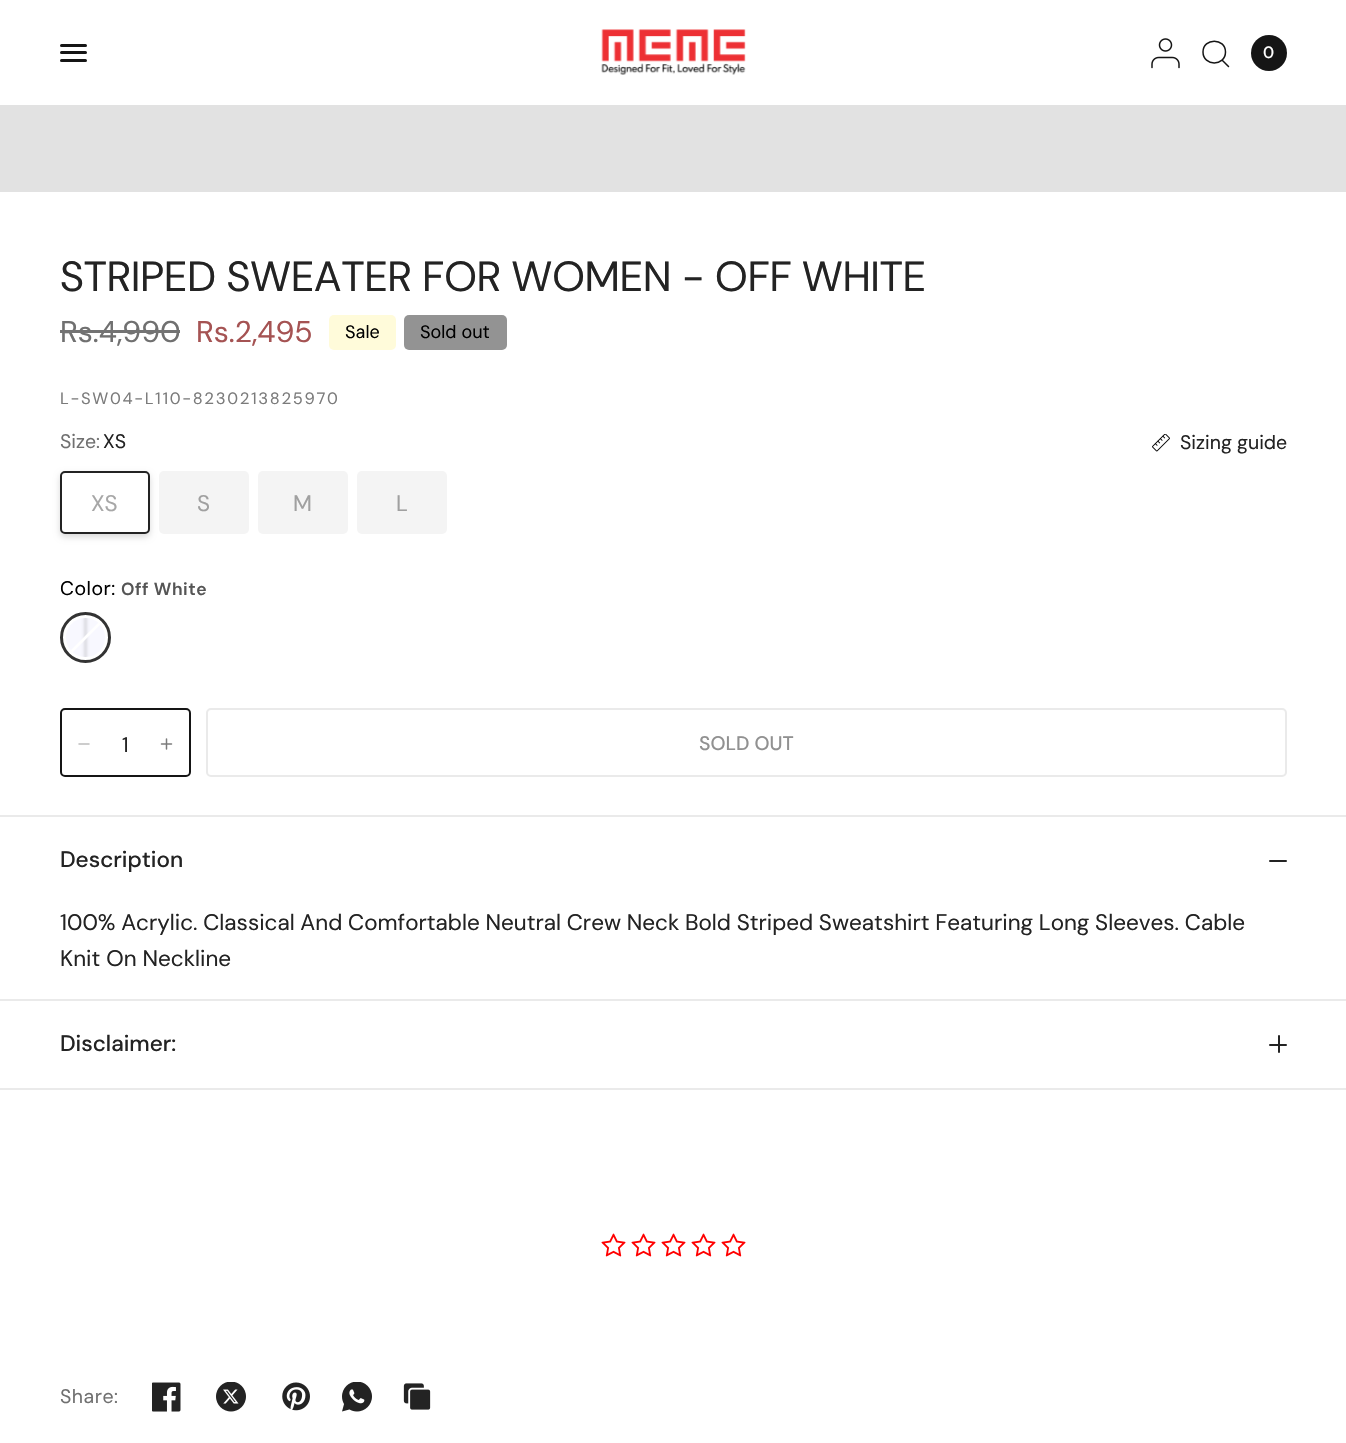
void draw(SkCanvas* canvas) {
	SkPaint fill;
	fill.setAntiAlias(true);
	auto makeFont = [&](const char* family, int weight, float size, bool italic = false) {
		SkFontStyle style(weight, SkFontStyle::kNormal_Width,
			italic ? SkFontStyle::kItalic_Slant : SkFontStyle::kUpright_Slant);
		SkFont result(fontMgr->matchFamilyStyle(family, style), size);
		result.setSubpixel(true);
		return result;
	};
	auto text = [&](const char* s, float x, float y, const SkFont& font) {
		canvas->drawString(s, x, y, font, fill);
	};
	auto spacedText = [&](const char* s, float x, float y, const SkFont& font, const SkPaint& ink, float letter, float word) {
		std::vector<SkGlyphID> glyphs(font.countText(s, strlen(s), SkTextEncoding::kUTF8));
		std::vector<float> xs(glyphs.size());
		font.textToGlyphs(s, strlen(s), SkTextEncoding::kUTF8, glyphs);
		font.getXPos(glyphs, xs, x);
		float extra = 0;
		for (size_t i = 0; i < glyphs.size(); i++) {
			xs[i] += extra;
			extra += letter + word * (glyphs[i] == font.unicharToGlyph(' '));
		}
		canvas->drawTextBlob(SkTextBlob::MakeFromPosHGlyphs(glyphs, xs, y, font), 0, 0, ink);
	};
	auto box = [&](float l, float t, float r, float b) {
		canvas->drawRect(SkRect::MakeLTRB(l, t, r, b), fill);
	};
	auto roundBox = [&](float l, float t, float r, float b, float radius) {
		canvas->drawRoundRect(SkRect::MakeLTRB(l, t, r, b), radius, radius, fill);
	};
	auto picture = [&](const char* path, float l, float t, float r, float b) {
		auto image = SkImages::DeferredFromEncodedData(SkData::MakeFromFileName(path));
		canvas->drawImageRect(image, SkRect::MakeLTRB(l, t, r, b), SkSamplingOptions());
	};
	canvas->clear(0xFFFFFFFF);
	fill.setColor(0xFF151515);
	roundBox(60, 44, 87, 47, 1.5f);
	roundBox(60, 51, 87, 54, 1.5f);
	roundBox(60, 59, 87, 62, 1.5f);
	picture("image0.png", 601, 29, 746, 75);
	picture("image1.png", 1151, 38, 1180, 69);
	fill.setStyle(SkPaint::kStroke_Style);
	fill.setStrokeWidth(1.5f);
	fill.setStrokeCap(SkPaint::kRound_Cap);
	fill.setStrokeJoin(SkPaint::kRound_Join);
	canvas->drawPath(SkPathBuilder().moveTo(1222, 60).lineTo(1228.5f, 66.5f).moveTo(1225.5f, 52).cubicTo(1225.5f, 66.5f, 1203, 66.5f, 1203, 52).cubicTo(1203, 37.5f, 1225.5f, 37.5f, 1225.5f, 52).close().detach(), fill);
	fill.setStyle(SkPaint::kFill_Style);
	canvas->drawCircle(1269, 53, 18, fill);
	picture("image2.png", 0, 105, 1346, 192);
	fill.setColor(0xFFFFFBDA);
	roundBox(329, 315, 396, 350, 5);
	fill.setColor(0xFF939393);
	roundBox(404, 315, 507, 350, 5);
	picture("image3.png", 1152, 434, 1170, 452);
	fill.setColor(0xFFF4F4F4);
	roundBox(159, 471, 249, 534, 5);
	fill.setColor(0x26000000);
	fill.setMaskFilter(SkMaskFilter::MakeBlur(kNormal_SkBlurStyle, 3));
	canvas->drawRoundRect(SkRect::MakeLTRB(60, 474, 150, 537), 5, 5, fill);
	fill.setMaskFilter(nullptr);
	fill.setColor(0xFFFFFFFF);
	canvas->drawRoundRect(SkRect::MakeLTRB(61, 472, 149, 533), 4, 4, fill);
	fill.setStyle(SkPaint::kStroke_Style);
	fill.setStrokeWidth(2);
	fill.setStrokeCap(SkPaint::kButt_Cap);
	fill.setStrokeJoin(SkPaint::kMiter_Join);
	fill.setColor(0xFF232323);
	canvas->drawRoundRect(SkRect::MakeLTRB(61, 472, 149, 533), 4, 4, fill);
	fill.setStyle(SkPaint::kFill_Style);
	fill.setColor(0xFFF4F4F4);
	roundBox(258, 471, 348, 534, 5);
	roundBox(357, 471, 447, 534, 5);
	fill.setColor(0xFFF8F8FF);
	canvas->drawCircle(85.5f, 637.5f, 19.5f, fill);
	fill.setStyle(SkPaint::kStroke_Style);
	fill.setStrokeWidth(3);
	fill.setColor(0xFF333333);
	canvas->drawCircle(85.5f, 637.5f, 24, fill);
	canvas->save();
	canvas->clipPath(SkPathBuilder().moveTo(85.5f, 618).cubicTo(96.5f, 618, 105, 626.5f, 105, 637.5f).cubicTo(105, 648.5f, 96.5f, 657, 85.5f, 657).cubicTo(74.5f, 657, 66, 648.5f, 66, 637.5f).cubicTo(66, 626.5f, 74.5f, 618, 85.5f, 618).close().detach(), true);
	fill.setStyle(SkPaint::kFill_Style);
	fill.setColor(0x21000000);
	fill.setMaskFilter(SkMaskFilter::MakeBlur(kNormal_SkBlurStyle, 1.5f));
	canvas->drawRect(SkRect::MakeLTRB(84, 608, 87, 668), fill);
	fill.setMaskFilter(nullptr);
	canvas->restore();
	fill.setColor(0xFFFFFFFF);
	canvas->drawPath(SkPathBuilder().moveTo(70.5f, 650.5f).lineTo(98.5f, 622.5f).lineTo(100.5f, 624.5f).lineTo(72.5f, 652.5f).close().detach(), fill);
	fill.setStyle(SkPaint::kStroke_Style);
	fill.setStrokeWidth(2);
	fill.setColor(0xFF151515);
	canvas->drawRoundRect(SkRect::MakeLTRB(61, 709, 190, 776), 4, 4, fill);
	fill.setStrokeWidth(1.5f);
	fill.setStrokeCap(SkPaint::kRound_Cap);
	fill.setStrokeJoin(SkPaint::kRound_Join);
	fill.setColor(0xFFBDBDBD);
	canvas->drawPath(SkPathBuilder().moveTo(79, 744).lineTo(89, 744).detach(), fill);
	fill.setColor(0xFF7B7B7B);
	canvas->drawPath(SkPathBuilder().moveTo(161.5f, 744).lineTo(171.5f, 744).moveTo(166.5f, 739).lineTo(166.5f, 749).detach(), fill);
	fill.setStrokeWidth(2);
	fill.setStrokeCap(SkPaint::kButt_Cap);
	fill.setStrokeJoin(SkPaint::kMiter_Join);
	fill.setColor(0xFFEAEAEA);
	canvas->drawRoundRect(SkRect::MakeLTRB(207, 709, 1286, 776), 4, 4, fill);
	fill.setStyle(SkPaint::kFill_Style);
	box(0, 815, 1346, 817);
	box(0, 999, 1346, 1001);
	fill.setColor(0xFF232323);
	roundBox(1269, 860, 1287, 862, 1);
	fill.setColor(0xFFEAEAEA);
	box(0, 1088, 1346, 1090);
	fill.setColor(0xFF232323);
	roundBox(1278, 1035, 1280, 1053, 1);
	roundBox(1269, 1044, 1287, 1046, 1);
	picture("image4.png", 601, 1233, 626, 1257);
	picture("image4.png", 631, 1233, 656, 1257);
	picture("image4.png", 661, 1233, 686, 1257);
	picture("image4.png", 691, 1233, 716, 1257);
	picture("image4.png", 721, 1233, 746, 1257);
	picture("image5.png", 152, 1382, 181, 1412);
	picture("image6.png", 216, 1382, 246, 1412);
	picture("image7.png", 282, 1382, 310, 1411);
	picture("image8.png", 342, 1382, 372, 1412);
	picture("image9.png", 403, 1383, 431, 1410);
	auto font1 = makeFont("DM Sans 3", 500, 16.5f);
	fill.setColor(0xFFFFFFFF);
	text("0", 1263, 58, font1);
	auto font2 = makeFont("DM Sans", 400, 42);
	fill.setColor(0xFF232323);
	text("STRIPED SWEATER FOR WOMEN - OFF WHITE", 60, 291, font2);
	auto font3 = makeFont("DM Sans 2", 400, 30);
	fill.setColor(0xFF707070);
	text("Rs.4,990", 60, 342, font3);
	fill.setColor(0xFF737373);
	box(60, 330, 180, 333);
	fill.setColor(0xFFA55353);
	text("Rs.2,495", 196, 342, font3);
	auto font4 = makeFont("DM Sans 3", 400, 18);
	fill.setColor(0xFF000000);
	text("Sale", 345, 338, font4);
	text("Sold out", 420, 338, font4);
	auto font5 = makeFont("DM Sans 3", 400, 16.5f);
	fill.setColor(0xFF7B7B7B);
	spacedText("L-SW04-L110-8230213825970", 60, 404, font5, fill, 1.65f, 0);
	auto font6 = makeFont("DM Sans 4", 400, 19.5f);
	fill.setColor(0xFF707070);
	text("Size:", 60, 448, font6);
	fill.setColor(0xFF232323);
	text("XS", 103, 448, font6);
	text("Sizing guide", 1180, 449, font6);
	auto font7 = makeFont("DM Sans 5", 400, 22.5f);
	fill.setColor(0xFFA7A7A7);
	text("XS", 91, 511, font7);
	fill.setColor(0xFFA0A0A0);
	text("S", 197, 511, font7);
	text("M", 293, 511, font7);
	text("L", 396, 511, font7);
	fill.setColor(0xFF000000);
	spacedText("Color:", 60, 595, font6, fill, 0.5f, 0);
	auto font8 = makeFont("DM Sans", 600, 17.5f);
	fill.setColor(0xFF555555);
	spacedText("Off White", 121, 595, font8, fill, 0.5f, 0);
	auto font9 = makeFont("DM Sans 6", 400, 21);
	fill.setColor(0xFF232323);
	text("1", 122, 752, font9);
	auto font10 = makeFont("DM Sans 2", 500, 19.5f);
	fill.setColor(0xFF919191);
	text("SOLD OUT", 699, 750, font10);
	auto font11 = makeFont("DM Sans", 500, 22.5f);
	fill.setColor(0xFF232323);
	text("Description", 60, 867, font11);
	spacedText("100% Acrylic. Classical And Comfortable Neutral Crew Neck Bold Striped Sweatshirt Featuring Long Sleeves. Cable", 60, 930, font7, fill, 0, -0.3f);
	text("Knit On Neckline", 60, 966, font7);
	text("Disclaimer:", 60, 1051, font11);
	fill.setColor(0xFF707070);
	spacedText("Share:", 60, 1403, font6, fill, 0.5f, 0);
}
